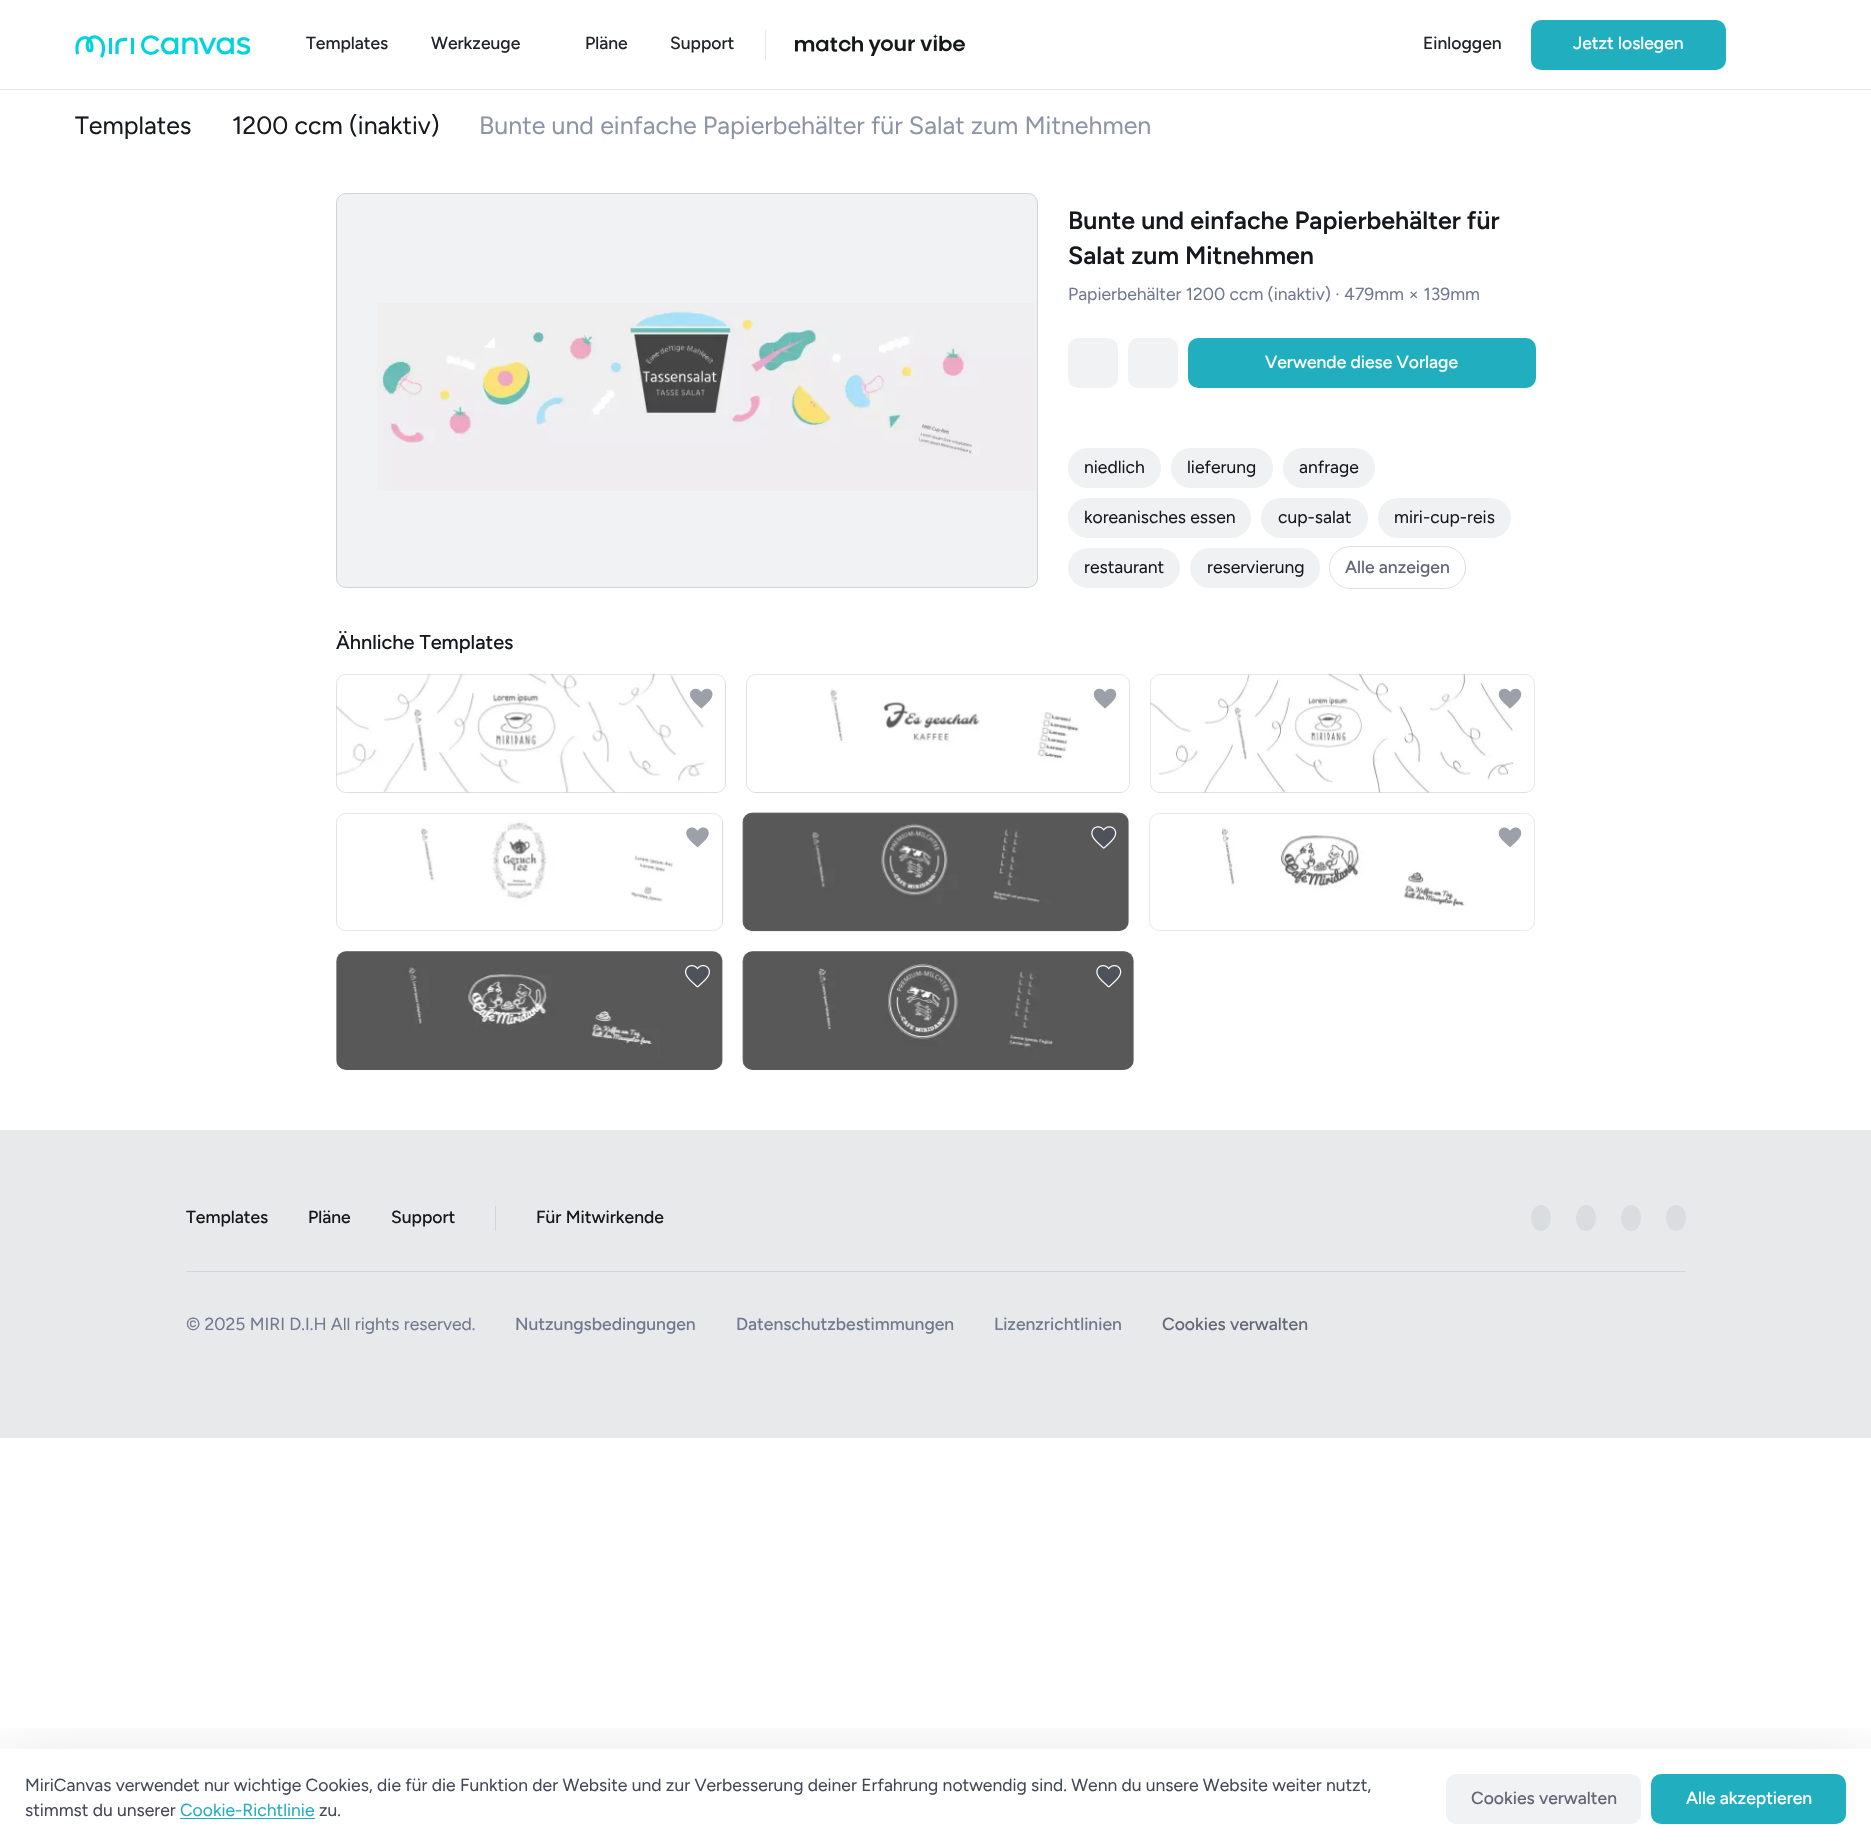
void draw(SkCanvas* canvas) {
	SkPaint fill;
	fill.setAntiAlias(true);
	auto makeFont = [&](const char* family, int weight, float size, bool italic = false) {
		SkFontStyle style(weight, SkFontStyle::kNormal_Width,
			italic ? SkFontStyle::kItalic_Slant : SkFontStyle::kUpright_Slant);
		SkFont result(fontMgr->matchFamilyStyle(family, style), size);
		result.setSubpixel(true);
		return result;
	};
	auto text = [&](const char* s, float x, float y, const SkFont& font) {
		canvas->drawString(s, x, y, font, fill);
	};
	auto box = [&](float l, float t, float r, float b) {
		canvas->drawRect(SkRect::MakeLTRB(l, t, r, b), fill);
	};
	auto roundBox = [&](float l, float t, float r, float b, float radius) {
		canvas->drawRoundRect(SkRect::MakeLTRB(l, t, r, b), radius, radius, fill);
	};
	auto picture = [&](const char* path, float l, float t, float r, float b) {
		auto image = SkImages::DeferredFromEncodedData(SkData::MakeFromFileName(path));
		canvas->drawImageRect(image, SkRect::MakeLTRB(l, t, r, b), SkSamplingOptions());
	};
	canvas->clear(0xFFFFFFFF);
	fill.setColor(0xFFE6E8EB);
	box(0, 89, 1871, 90);
	picture("image0.png", 75, 35, 250, 58);
	box(765, 30, 766, 60);
	picture("image1.png", 795, 34, 965, 56);
	fill.setColor(0xFF21AFBF);
	roundBox(1531, 20, 1726, 70, 10);
	fill.setColor(0xFFF1F2F3);
	roundBox(336, 193, 1038, 588, 10);
	fill.setStyle(SkPaint::kStroke_Style);
	fill.setStrokeWidth(1);
	fill.setColor(0x2623242A);
	canvas->drawRoundRect(SkRect::MakeLTRB(336.5f, 193.5f, 1037.5f, 587.5f), 9.5f, 9.5f, fill);
	picture("image2.png", 377, 303, 1036, 491);
	fill.setStyle(SkPaint::kFill_Style);
	fill.setColor(0xFFF1F2F4);
	roundBox(1068, 338, 1118, 388, 10);
	roundBox(1128, 338, 1178, 388, 10);
	fill.setColor(0xFF21AFBF);
	roundBox(1188, 338, 1536, 388, 10);
	fill.setColor(0xFFF0F1F3);
	roundBox(1068, 448, 1161, 488, 20);
	roundBox(1171, 448, 1273, 488, 20);
	roundBox(1283, 448, 1375, 488, 20);
	roundBox(1068, 498, 1251, 538, 20);
	roundBox(1261, 498, 1368, 538, 20);
	roundBox(1378, 498, 1511, 538, 20);
	roundBox(1068, 548, 1180, 588, 20);
	roundBox(1190, 548, 1320, 588, 20);
	fill.setStyle(SkPaint::kStroke_Style);
	fill.setColor(0xFFDEDEDF);
	canvas->drawRoundRect(SkRect::MakeLTRB(1329.5f, 546.5f, 1465.5f, 588.5f), 21, 21, fill);
	fill.setStyle(SkPaint::kFill_Style);
	fill.setColor(0xFFF0F1F3);
	roundBox(336, 674, 726, 793, 10);
	picture("image3.png", 336, 673, 725, 793);
	fill.setStyle(SkPaint::kStroke_Style);
	fill.setColor(0x265A6577);
	canvas->drawRoundRect(SkRect::MakeLTRB(336.5f, 674.5f, 725.5f, 792.5f), 9.5f, 9.5f, fill);
	picture("image4.png", 690, 688, 713, 709);
	fill.setStyle(SkPaint::kFill_Style);
	fill.setColor(0xFFF0F1F3);
	roundBox(746, 674, 1130, 793, 10);
	picture("image5.png", 746, 674, 1130, 792);
	fill.setStyle(SkPaint::kStroke_Style);
	fill.setColor(0x265A6577);
	canvas->drawRoundRect(SkRect::MakeLTRB(746.5f, 674.5f, 1129.5f, 792.5f), 9.5f, 9.5f, fill);
	picture("image6.png", 1093, 688, 1117, 709);
	fill.setStyle(SkPaint::kFill_Style);
	fill.setColor(0xFFF0F1F3);
	roundBox(1150, 674, 1535, 793, 10);
	picture("image7.png", 1150, 673, 1535, 793);
	fill.setStyle(SkPaint::kStroke_Style);
	fill.setColor(0x265A6577);
	canvas->drawRoundRect(SkRect::MakeLTRB(1150.5f, 674.5f, 1534.5f, 792.5f), 9.5f, 9.5f, fill);
	picture("image8.png", 1498, 688, 1522, 709);
	fill.setStyle(SkPaint::kFill_Style);
	fill.setColor(0xFFF0F1F3);
	roundBox(336, 813, 723, 931, 10);
	picture("image9.png", 336, 813, 722, 931);
	fill.setStyle(SkPaint::kStroke_Style);
	fill.setColor(0x265A6577);
	canvas->drawRoundRect(SkRect::MakeLTRB(336.5f, 813.5f, 722.5f, 930.5f), 9.5f, 9.5f, fill);
	picture("image10.png", 685, 827, 710, 848);
	fill.setStyle(SkPaint::kFill_Style);
	fill.setColor(0xFFF0F1F3);
	roundBox(743, 813, 1129, 931, 10);
	picture("image11.png", 742, 812, 1129, 932);
	fill.setStyle(SkPaint::kStroke_Style);
	fill.setColor(0x265A6577);
	canvas->drawRoundRect(SkRect::MakeLTRB(743.5f, 813.5f, 1128.5f, 930.5f), 9.5f, 9.5f, fill);
	picture("image12.png", 1091, 826, 1117, 849);
	picture("image13.png", 1149, 813, 1535, 931);
	canvas->drawRoundRect(SkRect::MakeLTRB(1149.5f, 813.5f, 1534.5f, 930.5f), 9.5f, 9.5f, fill);
	picture("image14.png", 1498, 827, 1522, 848);
	fill.setStyle(SkPaint::kFill_Style);
	fill.setColor(0xFFF0F1F3);
	roundBox(336, 951, 723, 1070, 10);
	picture("image15.png", 336, 951, 723, 1070);
	fill.setStyle(SkPaint::kStroke_Style);
	fill.setColor(0x265A6577);
	canvas->drawRoundRect(SkRect::MakeLTRB(336.5f, 951.5f, 722.5f, 1069.5f), 9.5f, 9.5f, fill);
	picture("image16.png", 685, 965, 710, 988);
	fill.setStyle(SkPaint::kFill_Style);
	fill.setColor(0xFFF0F1F3);
	roundBox(743, 951, 1134, 1070, 10);
	picture("image17.png", 742, 951, 1134, 1070);
	fill.setStyle(SkPaint::kStroke_Style);
	fill.setColor(0x265A6577);
	canvas->drawRoundRect(SkRect::MakeLTRB(743.5f, 951.5f, 1133.5f, 1069.5f), 9.5f, 9.5f, fill);
	picture("image18.png", 1096, 965, 1122, 988);
	fill.setStyle(SkPaint::kFill_Style);
	fill.setColor(0xFFE7E9EB);
	box(0, 1130, 1871, 1438);
	fill.setColor(0xFFD2D5DA);
	box(495, 1206, 496, 1231);
	fill.setColor(0xFFDADDE0);
	canvas->drawOval(SkRect::MakeLTRB(1531, 1205, 1551, 1231), fill);
	canvas->drawOval(SkRect::MakeLTRB(1576, 1205, 1596, 1231), fill);
	canvas->drawOval(SkRect::MakeLTRB(1621, 1205, 1641, 1231), fill);
	canvas->drawOval(SkRect::MakeLTRB(1666, 1205, 1686, 1231), fill);
	fill.setColor(0xFFD2D5DA);
	box(186, 1271, 1686, 1272);
	canvas->save();
	canvas->clipRect(SkRect::MakeLTRB(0, 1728, 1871, 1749));
	fill.setColor(0x33000000);
	fill.setMaskFilter(SkMaskFilter::MakeBlur(kNormal_SkBlurStyle, 40));
	canvas->drawRect(SkRect::MakeLTRB(0, 1779, 1871, 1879), fill);
	fill.setMaskFilter(nullptr);
	canvas->restore();
	fill.setColor(0xFF21AFBF);
	box(180, 1818, 315, 1819);
	fill.setColor(0xFFF1F2F4);
	roundBox(1446, 1774, 1641, 1824, 10);
	fill.setColor(0xFF21AFBF);
	roundBox(1651, 1774, 1846, 1824, 10);
	auto font1 = makeFont("Figtree", 500, 17.5f);
	fill.setColor(0xFF23242A);
	text("Templates", 306, 49, font1);
	text("Werkzeuge", 431, 49, font1);
	text("Pläne", 585, 49, font1);
	text("Support", 670, 49, font1);
	text("Einloggen", 1423, 49, font1);
	fill.setColor(0xFFFFFFFF);
	text("Jetzt loslegen", 1573, 49, font1);
	auto font2 = makeFont("Figtree", 400, 25);
	fill.setColor(0xFF16181D);
	text("Templates", 75, 134, font2);
	text("1200 ccm (inaktiv)", 232, 134, font2);
	fill.setColor(0xFF8D94A5);
	text("Bunte und einfache Papierbehälter für Salat zum Mitnehmen", 479, 134, font2);
	auto font3 = makeFont("Figtree", 600, 25);
	fill.setColor(0xFF16181D);
	text("Bunte und einfache Papierbehälter für", 1068, 229, font3);
	text("Salat zum Mitnehmen", 1068, 264, font3);
	auto font4 = makeFont("Figtree", 400, 17.5f);
	fill.setColor(0xFF70798F);
	text("Papierbehälter 1200 ccm (inaktiv) · 479mm × 139mm", 1068, 300, font4);
	fill.setColor(0xFFFFFFFF);
	text("Verwende diese Vorlage", 1265, 368, font1);
	fill.setColor(0xFF16181D);
	text("niedlich", 1084, 473, font4);
	text("lieferung", 1187, 473, font4);
	text("anfrage", 1299, 473, font4);
	text("koreanisches essen", 1084, 523, font4);
	text("cup-salat", 1278, 523, font4);
	text("miri-cup-reis", 1394, 523, font4);
	text("restaurant", 1084, 573, font4);
	text("reservierung", 1207, 573, font4);
	fill.setColor(0xFF626677);
	text("Alle anzeigen", 1345, 573, font1);
	auto font5 = makeFont("Figtree", 500, 20);
	fill.setColor(0xFF16181D);
	text("Ähnliche Templates", 336, 649, font5);
	text("Templates", 186, 1223, font1);
	text("Pläne", 308, 1223, font1);
	text("Support", 391, 1223, font1);
	text("Für Mitwirkende", 536, 1223, font1);
	fill.setColor(0xFF70798F);
	text("© 2025 MIRI D.I.H All rights reserved.", 186, 1330, font4);
	text("Nutzungsbedingungen", 515, 1330, font1);
	text("Datenschutzbestimmungen", 736, 1330, font1);
	text("Lizenzrichtlinien", 994, 1330, font1);
	fill.setColor(0xFF626677);
	text("Cookies verwalten", 1162, 1330, font1);
	fill.setColor(0xFF434856);
	text("MiriCanvas verwendet nur wichtige Cookies, die für die Funktion der Website und zur Verbesserung deiner Erfahrung notwendig sind. Wenn du unsere Website weiter nutzt,", 25, 1791, font4);
	text("stimmst du unserer", 25, 1816, font4);
	fill.setColor(0xFF21AFBF);
	text("Cookie-Richtlinie", 180, 1816, font4);
	fill.setColor(0xFF434856);
	text("zu.", 319, 1816, font4);
	fill.setColor(0xFF626677);
	text("Cookies verwalten", 1471, 1804, font1);
	fill.setColor(0xFFFFFFFF);
	text("Alle akzeptieren", 1686, 1804, font1);
}
